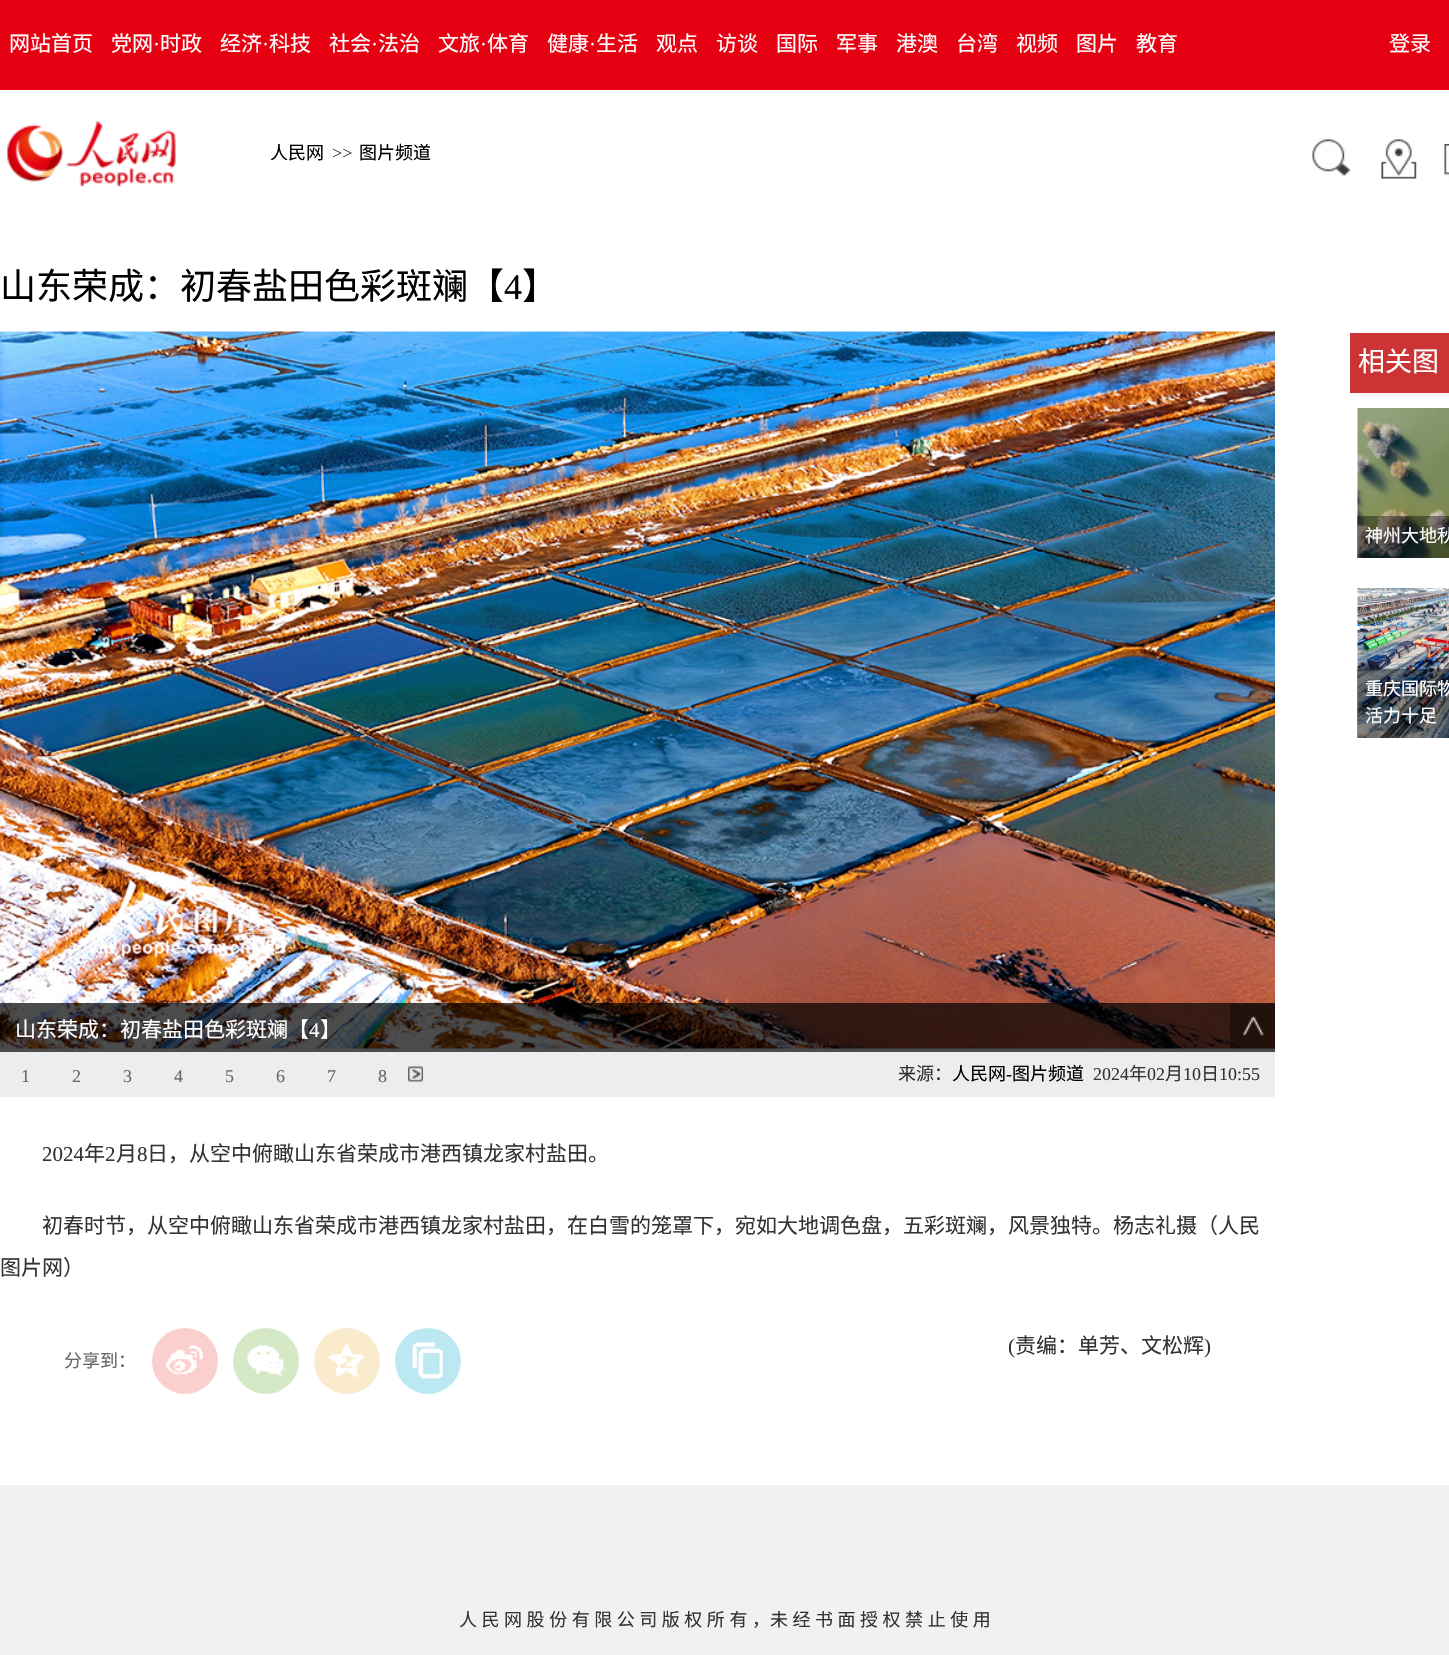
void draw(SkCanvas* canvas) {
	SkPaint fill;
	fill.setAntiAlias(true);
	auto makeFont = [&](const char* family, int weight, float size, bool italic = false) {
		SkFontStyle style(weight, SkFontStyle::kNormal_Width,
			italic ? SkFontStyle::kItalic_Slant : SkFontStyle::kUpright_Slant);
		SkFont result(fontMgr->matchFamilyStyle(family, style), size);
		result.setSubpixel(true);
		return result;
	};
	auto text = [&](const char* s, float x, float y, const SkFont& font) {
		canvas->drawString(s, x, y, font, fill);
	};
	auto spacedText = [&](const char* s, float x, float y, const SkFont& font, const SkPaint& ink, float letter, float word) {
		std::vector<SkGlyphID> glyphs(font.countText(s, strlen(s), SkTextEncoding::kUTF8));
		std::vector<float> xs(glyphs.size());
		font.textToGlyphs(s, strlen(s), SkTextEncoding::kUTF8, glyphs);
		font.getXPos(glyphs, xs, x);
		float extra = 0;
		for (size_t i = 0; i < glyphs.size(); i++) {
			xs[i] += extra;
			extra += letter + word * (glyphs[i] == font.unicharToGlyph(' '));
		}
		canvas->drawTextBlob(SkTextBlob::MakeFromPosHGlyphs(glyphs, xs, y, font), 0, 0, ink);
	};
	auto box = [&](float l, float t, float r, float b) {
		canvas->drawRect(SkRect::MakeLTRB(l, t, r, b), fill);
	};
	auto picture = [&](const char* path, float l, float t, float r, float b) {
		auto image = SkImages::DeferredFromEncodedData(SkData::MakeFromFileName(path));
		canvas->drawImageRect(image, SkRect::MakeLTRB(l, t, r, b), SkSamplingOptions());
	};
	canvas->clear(0xFFFFFFFF);
	fill.setColor(0xFFE60012);
	box(0, 0, 1449, 90);
	picture("image0.png", 7, 121, 176, 187);
	picture("image1.png", 1312, 139, 1351, 176);
	picture("image2.png", 1381, 139, 1417, 179);
	picture("image3.png", 1444, 144, 1449, 179);
	picture("image4.png", 0, 331, 1275, 1049);
	fill.setColor(0xB3000000);
	box(0, 1003, 1275, 1052);
	picture("image5.png", 1230, 1003, 1275, 1049);
	fill.setColor(0xFFEDEDED);
	box(0, 1052, 1275, 1097);
	picture("image6.png", 408, 1066, 423, 1082);
	fill.setColor(0xFFFCCFCF);
	canvas->drawCircle(185, 1361, 33, fill);
	picture("image7.png", 166, 1345, 203, 1375);
	fill.setColor(0xFFD6E9C6);
	canvas->drawCircle(266, 1361, 33, fill);
	picture("image8.png", 247, 1345, 284, 1376);
	fill.setColor(0xFFFAEBCC);
	canvas->drawCircle(347, 1361, 33, fill);
	picture("image9.png", 328, 1343, 365, 1378);
	fill.setColor(0xFFBCE8F1);
	canvas->drawCircle(428, 1361, 33, fill);
	picture("image10.png", 412, 1342, 443, 1379);
	fill.setColor(0xFFCC3335);
	box(1350, 333, 1449, 393);
	picture("image11.png", 1357, 408, 1449, 558);
	fill.setColor(0x66000000);
	box(1357, 516, 1449, 558);
	picture("image12.png", 1357, 588, 1449, 738);
	box(1357, 669, 1449, 738);
	fill.setColor(0xFFF1F1F1);
	box(0, 1485, 1449, 1655);
	auto font1 = makeFont("Noto Sans CJK SC", 400, 21);
	fill.setColor(0xFFFFFFFF);
	text("网站首页", 9, 51, font1);
	text("党网", 111, 51, font1);
	auto font2 = makeFont("Liberation Serif", 400, 21);
	text("·", 153, 51, font2);
	text("时政", 160, 51, font1);
	text("经济", 220, 51, font1);
	text("·", 262, 51, font2);
	text("科技", 269, 51, font1);
	text("社会", 329, 51, font1);
	text("·", 371, 51, font2);
	text("法治", 378, 51, font1);
	text("文旅", 438, 51, font1);
	text("·", 480, 51, font2);
	text("体育", 487, 51, font1);
	text("健康", 547, 51, font1);
	text("·", 589, 51, font2);
	text("生活", 596, 51, font1);
	text("观点", 656, 51, font1);
	text("访谈", 716, 51, font1);
	text("国际", 776, 51, font1);
	text("军事", 836, 51, font1);
	text("港澳", 896, 51, font1);
	text("台湾", 956, 51, font1);
	text("视频", 1016, 51, font1);
	text("图片", 1076, 51, font1);
	text("教育", 1136, 51, font1);
	text("登录", 1389, 51, font1);
	auto font3 = makeFont("Noto Sans CJK SC", 400, 18);
	fill.setColor(0xFF000000);
	text("人民网", 270, 159, font3);
	auto font4 = makeFont("Liberation Serif", 400, 18);
	fill.setColor(0xFF333333);
	text(">>", 332, 159, font4);
	fill.setColor(0xFF000000);
	text("图片频道", 359, 159, font3);
	auto font5 = makeFont("Noto Sans CJK SC", 400, 36);
	text("山东荣成：初春盐田色彩斑斓【", 0, 299, font5);
	auto font6 = makeFont("Liberation Serif", 400, 36);
	text("4", 504, 299, font6);
	text("】", 522, 299, font5);
	fill.setColor(0xFFFFFFFF);
	text("山东荣成：初春盐田色彩斑斓【", 15, 1037, font1);
	text("4", 309, 1037, font2);
	text("】", 320, 1037, font1);
	fill.setColor(0xFF666666);
	text("1", 21, 1082, font4);
	text("2", 72, 1082, font4);
	text("3", 123, 1082, font4);
	text("4", 174, 1082, font4);
	text("5", 225, 1082, font4);
	text("6", 276, 1082, font4);
	text("7", 327, 1082, font4);
	text("8", 378, 1082, font4);
	fill.setColor(0xFF333333);
	text("来源：", 898, 1080, font3);
	fill.setColor(0xFF000000);
	text("人民网", 952, 1080, font3);
	text("-", 1006, 1080, font4);
	text("图片频道", 1012, 1080, font3);
	fill.setColor(0xFF333333);
	text("2024", 1093, 1080, font4);
	text("年", 1129, 1080, font3);
	text("02", 1147, 1080, font4);
	text("月", 1165, 1080, font3);
	text("10", 1183, 1080, font4);
	text("日", 1201, 1080, font3);
	text("10:55", 1219, 1080, font4);
	text("2024", 42, 1161, font2);
	text("年", 84, 1161, font1);
	text("2", 105, 1161, font2);
	text("月", 116, 1161, font1);
	text("8", 137, 1161, font2);
	text("日，从空中俯瞰山东省荣成市港西镇龙家村盐田。", 147, 1161, font1);
	text("初春时节，从空中俯瞰山东省荣成市港西镇龙家村盐田，在白雪的笼罩下，宛如大地调色盘，五彩斑斓，风景独特。杨志礼摄（人民", 42, 1233, font1);
	text("图片网）", 0, 1275, font1);
	text("(", 1008, 1353, font2);
	text("责编：单芳、文松辉", 1015, 1353, font1);
	text(")", 1204, 1353, font2);
	fill.setColor(0xFF666666);
	text("分享到：", 64, 1367, font3);
	auto font7 = makeFont("Noto Sans CJK SC", 400, 27);
	fill.setColor(0xFFFFFFFF);
	text("相关图", 1358, 371, font7);
	text("神州大地秋", 1365, 542, font3);
	text("重庆国际物", 1365, 695, font3);
	text("活力十足", 1365, 722, font3);
	fill.setColor(0xFF333333);
	spacedText("人 民 网 股 份 有 限 公 司 版 权 所 有 ，未 经 书 面 授 权 禁 止 使 用", 459, 1626, font3, fill, 0, 0.5f);
}
